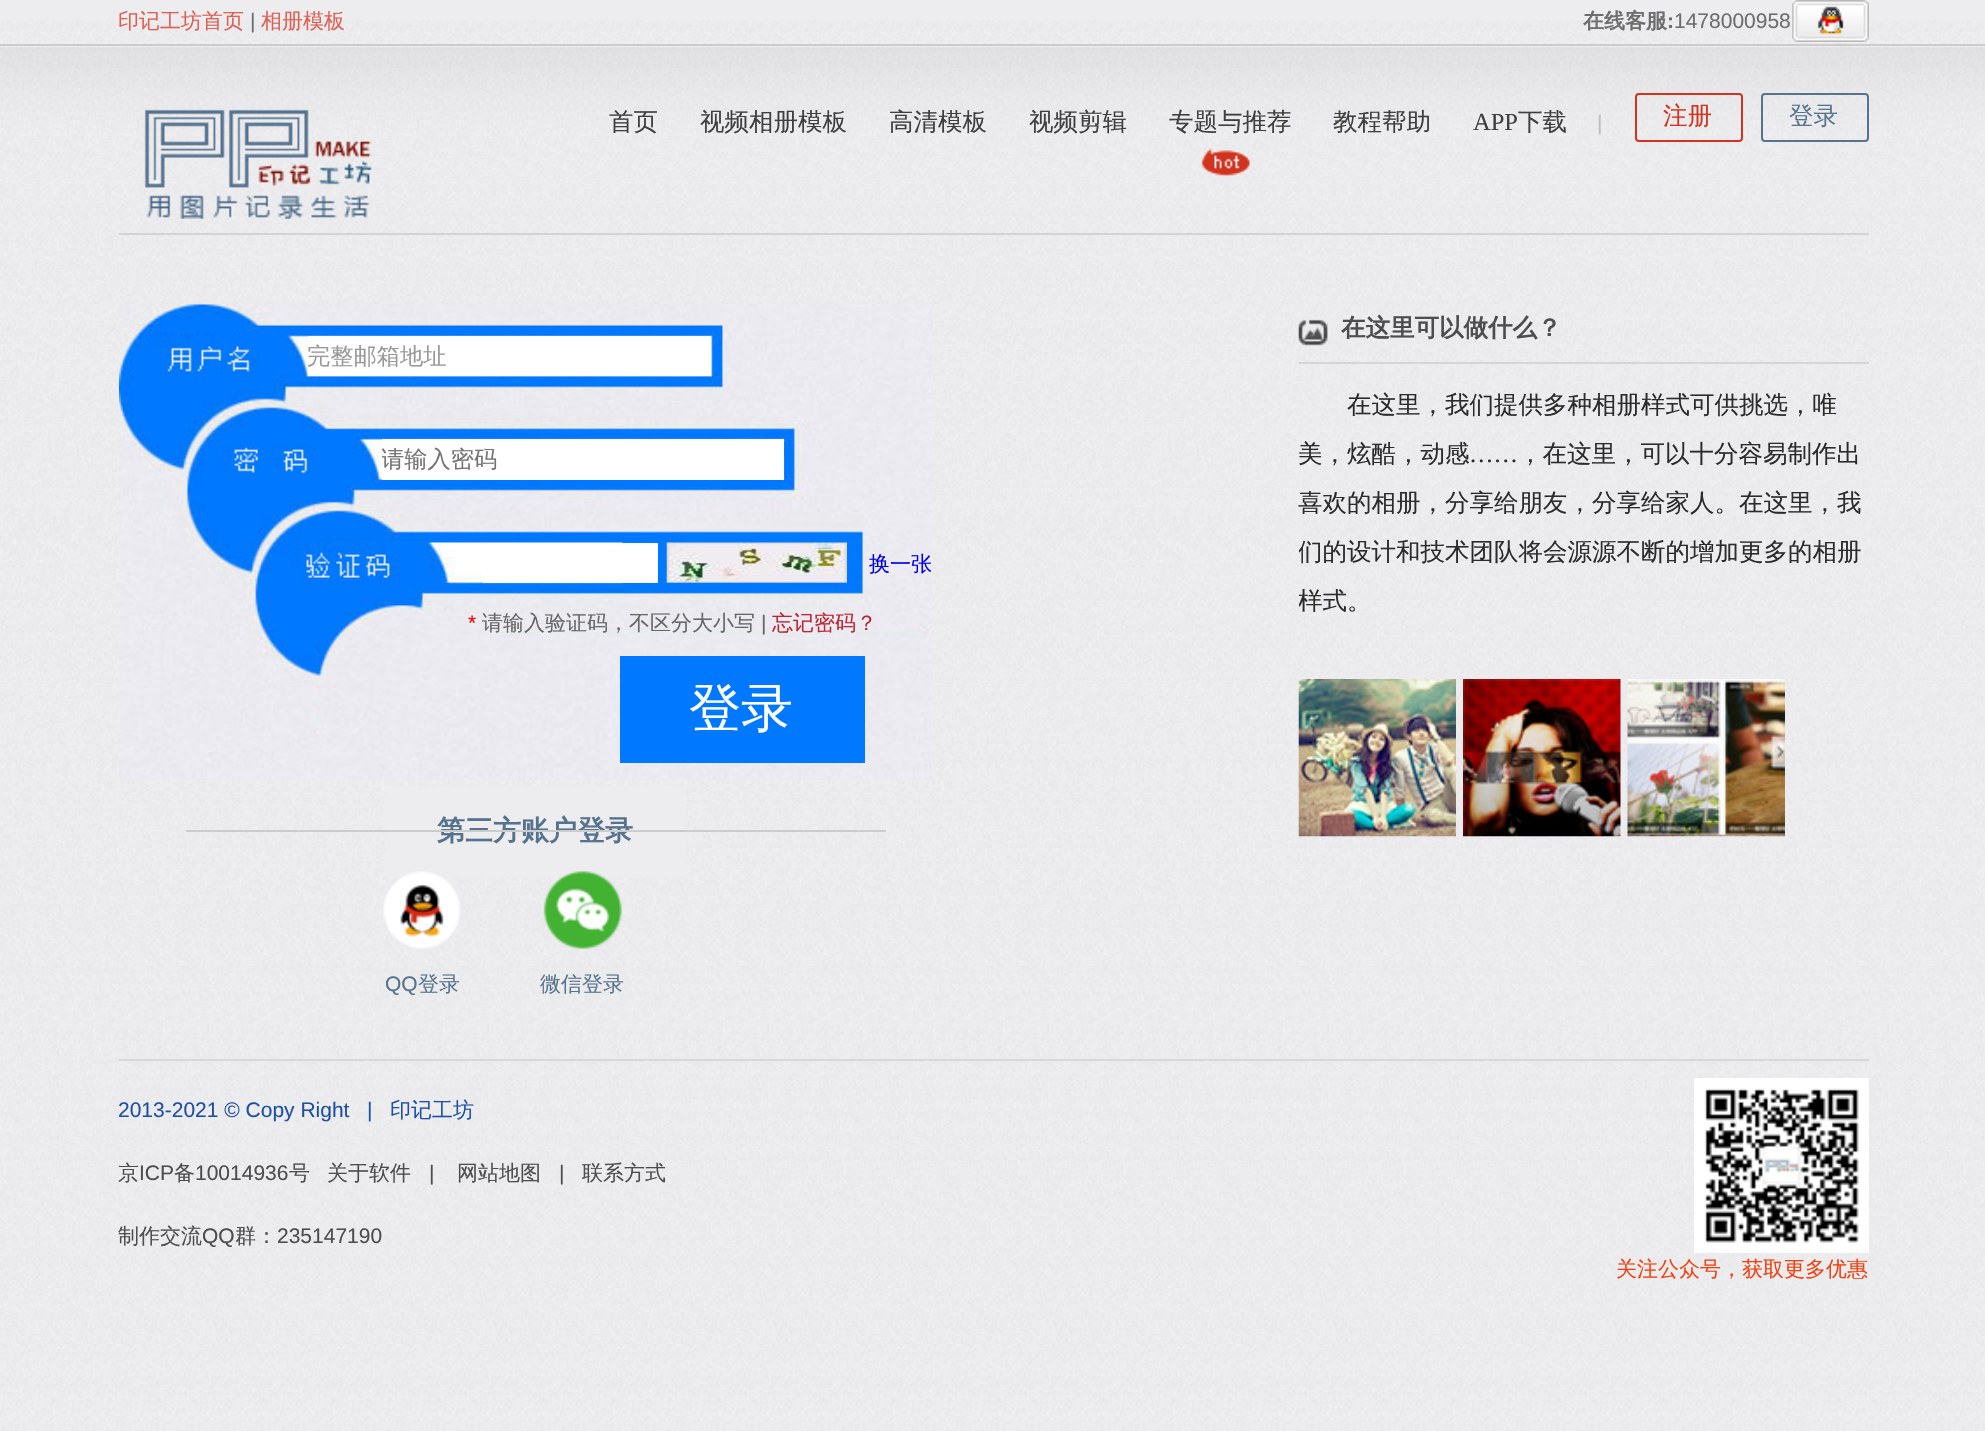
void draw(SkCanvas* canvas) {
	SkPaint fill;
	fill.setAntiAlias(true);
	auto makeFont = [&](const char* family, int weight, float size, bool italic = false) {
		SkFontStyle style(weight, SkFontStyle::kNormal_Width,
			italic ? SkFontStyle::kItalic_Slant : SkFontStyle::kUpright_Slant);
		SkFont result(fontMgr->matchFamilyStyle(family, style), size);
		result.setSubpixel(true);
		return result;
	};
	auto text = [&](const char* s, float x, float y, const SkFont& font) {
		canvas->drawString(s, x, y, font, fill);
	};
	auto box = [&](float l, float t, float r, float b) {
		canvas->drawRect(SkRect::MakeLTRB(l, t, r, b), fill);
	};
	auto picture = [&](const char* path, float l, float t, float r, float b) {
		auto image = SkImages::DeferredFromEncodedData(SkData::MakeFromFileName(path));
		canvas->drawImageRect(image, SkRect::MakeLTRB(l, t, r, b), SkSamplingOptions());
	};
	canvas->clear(0xFFFFFFFF);
	picture("image0.png", 0, 46, 1985, 1431);
	fill.setColor(0xFFEDEDF0);
	box(0, 0, 1985, 44);
	picture("image1.png", 0, 20, 1984, 44);
	fill.setColor(0xFFCCCCCC);
	box(0, 44, 1985, 46);
	picture("image2.png", 1792, 0, 1869, 42);
	fill.setColor(0xFFD3D3D6);
	box(119, 233, 1869, 235);
	picture("image3.png", 144, 109, 373, 219);
	picture("image4.png", 1201, 148, 1250, 176);
	fill.setStyle(SkPaint::kStroke_Style);
	fill.setStrokeWidth(2);
	fill.setColor(0xFFD1341E);
	canvas->drawRoundRect(SkRect::MakeLTRB(1636, 94, 1742, 141), 3, 3, fill);
	fill.setColor(0xFF56738E);
	canvas->drawRoundRect(SkRect::MakeLTRB(1762, 94, 1868, 141), 3, 3, fill);
	picture("image5.png", 119, 304, 933, 780);
	fill.setStyle(SkPaint::kFill_Style);
	fill.setColor(0xFFFFFFFF);
	box(308, 336, 711, 376);
	box(382, 439, 784, 480);
	box(483, 543, 658, 583);
	picture("image6.png", 666, 542, 847, 583);
	fill.setColor(0xFF0078FF);
	box(620, 656, 865, 763);
	fill.setColor(0xFFEDEDF0);
	box(385, 786, 686, 877);
	picture("image7.png", 383, 871, 461, 949);
	picture("image8.png", 543, 870, 623, 950);
	picture("image9.png", 1298, 319, 1328, 346);
	fill.setColor(0xFFD5D4D9);
	box(1299, 362, 1869, 364);
	picture("image10.png", 1298, 679, 1456, 837);
	picture("image11.png", 1463, 679, 1621, 837);
	picture("image12.png", 1627, 679, 1785, 837);
	fill.setColor(0xFFD7D7D9);
	box(119, 1059, 1869, 1061);
	picture("image13.png", 1694, 1078, 1869, 1253);
	auto font1 = makeFont("WenQuanYi Zen Hei", 500, 21);
	fill.setColor(0xFFDC6053);
	text("印记工坊首页", 118, 28, font1);
	auto font2 = makeFont("Liberation Sans", 400, 21);
	fill.setColor(0xFF6D6D6D);
	text("|", 250, 28, font2);
	fill.setColor(0xFFDC6053);
	text("相册模板", 261, 28, font1);
	auto font3 = makeFont("WenQuanYi Zen Hei", 700, 21);
	fill.setColor(0xFF6D6D6D);
	text("在线客服", 1583, 28, font3);
	auto font4 = makeFont("Liberation Sans", 700, 21);
	text(":", 1667, 28, font4);
	text("1478000958", 1674, 28, font2);
	auto font5 = makeFont("WenQuanYi Zen Hei", 500, 24.5f);
	fill.setColor(0xFF3F3F3F);
	text("首页", 609, 130, font5);
	text("视频相册模板", 700, 130, font5);
	text("高清模板", 889, 130, font5);
	text("视频剪辑", 1029, 130, font5);
	text("专题与推荐", 1169, 130, font5);
	text("教程帮助", 1333, 130, font5);
	auto font6 = makeFont("Liberation Serif", 400, 24.5f);
	text("APP", 1473, 130, font6);
	text("下载", 1518, 130, font5);
	fill.setColor(0xFFBDBDBD);
	text("|", 1597, 130, font2);
	fill.setColor(0xFFD1341E);
	text("注册", 1663, 124, font5);
	fill.setColor(0xFF56738E);
	text("登录", 1789, 124, font5);
	auto font7 = makeFont("WenQuanYi Zen Hei", 500, 23.25f);
	fill.setColor(0xFF999999);
	text("完整邮箱地址", 307, 364, font7);
	canvas->save();
	canvas->clipRect(SkRect::MakeLTRB(382, 445, 784, 476));
	fill.setColor(0xFF757575);
	text("请输入密码", 381, 467, font7);
	canvas->restore();
	fill.setColor(0xFF0000EE);
	text("换一张", 869, 571, font1);
	fill.setColor(0xFFFF0000);
	text("*", 468, 630, font2);
	fill.setColor(0xFF666666);
	text("请输入验证码，不区分大小写", 482, 630, font1);
	text("|", 761, 630, font2);
	fill.setColor(0xFFBA2636);
	text("忘记密码？", 772, 630, font1);
	auto font8 = makeFont("WenQuanYi Zen Hei", 500, 52);
	fill.setColor(0xFFFFFFFF);
	text("登录", 689, 726, font8);
	auto font9 = makeFont("WenQuanYi Zen Hei", 700, 28);
	fill.setColor(0xFF56738E);
	text("第三方账户登录", 437, 840, font9);
	fill.setColor(0xFFCCCCCC);
	box(186, 830, 886, 832);
	fill.setColor(0xFF56738E);
	text("QQ", 385, 991, font2);
	text("登录", 418, 991, font1);
	text("微信登录", 540, 991, font1);
	auto font10 = makeFont("WenQuanYi Zen Hei", 700, 24.5f);
	fill.setColor(0xFF4D4D4D);
	text("在这里可以做什么？", 1341, 336, font10);
	fill.setColor(0xFF2B2B2B);
	text("在这里，我们提供多种相册样式可供挑选，唯", 1347, 413, font5);
	text("美，炫酷，动感", 1298, 462, font5);
	text("……", 1469, 462, font6);
	text("，在这里，可以十分容易制作出", 1518, 462, font5);
	text("喜欢的相册，分享给朋友，分享给家人。在这里，我", 1298, 511, font5);
	canvas->save();
	canvas->clipRect(SkRect::MakeLTRB(1299, 305, 1869, 837));
	text("们的设计和技术团队将会源源不断的增加更多的相册", 1298, 560, font5);
	text("样式。", 1298, 609, font5);
	canvas->restore();
	fill.setColor(0xFF1E50A2);
	text("2013-2021 © Copy Right", 118, 1117, font2);
	text("|", 367, 1117, font2);
	text("印记工坊", 390, 1117, font1);
	fill.setColor(0xFF4D4D4D);
	text("京", 118, 1180, font1);
	text("ICP", 139, 1180, font2);
	text("备", 174, 1180, font1);
	text("10014936", 195, 1180, font2);
	text("号", 289, 1180, font1);
	text("关于软件", 327, 1180, font1);
	text("|", 429, 1180, font2);
	text("网站地图", 457, 1180, font1);
	text("|", 559, 1180, font2);
	text("联系方式", 582, 1180, font1);
	text("制作交流", 118, 1243, font1);
	text("QQ", 202, 1243, font2);
	text("群：", 235, 1243, font1);
	text("235147190", 277, 1243, font2);
	fill.setColor(0xFFF3400F);
	text("关注公众号，获取更多优惠", 1616, 1276, font1);
}
